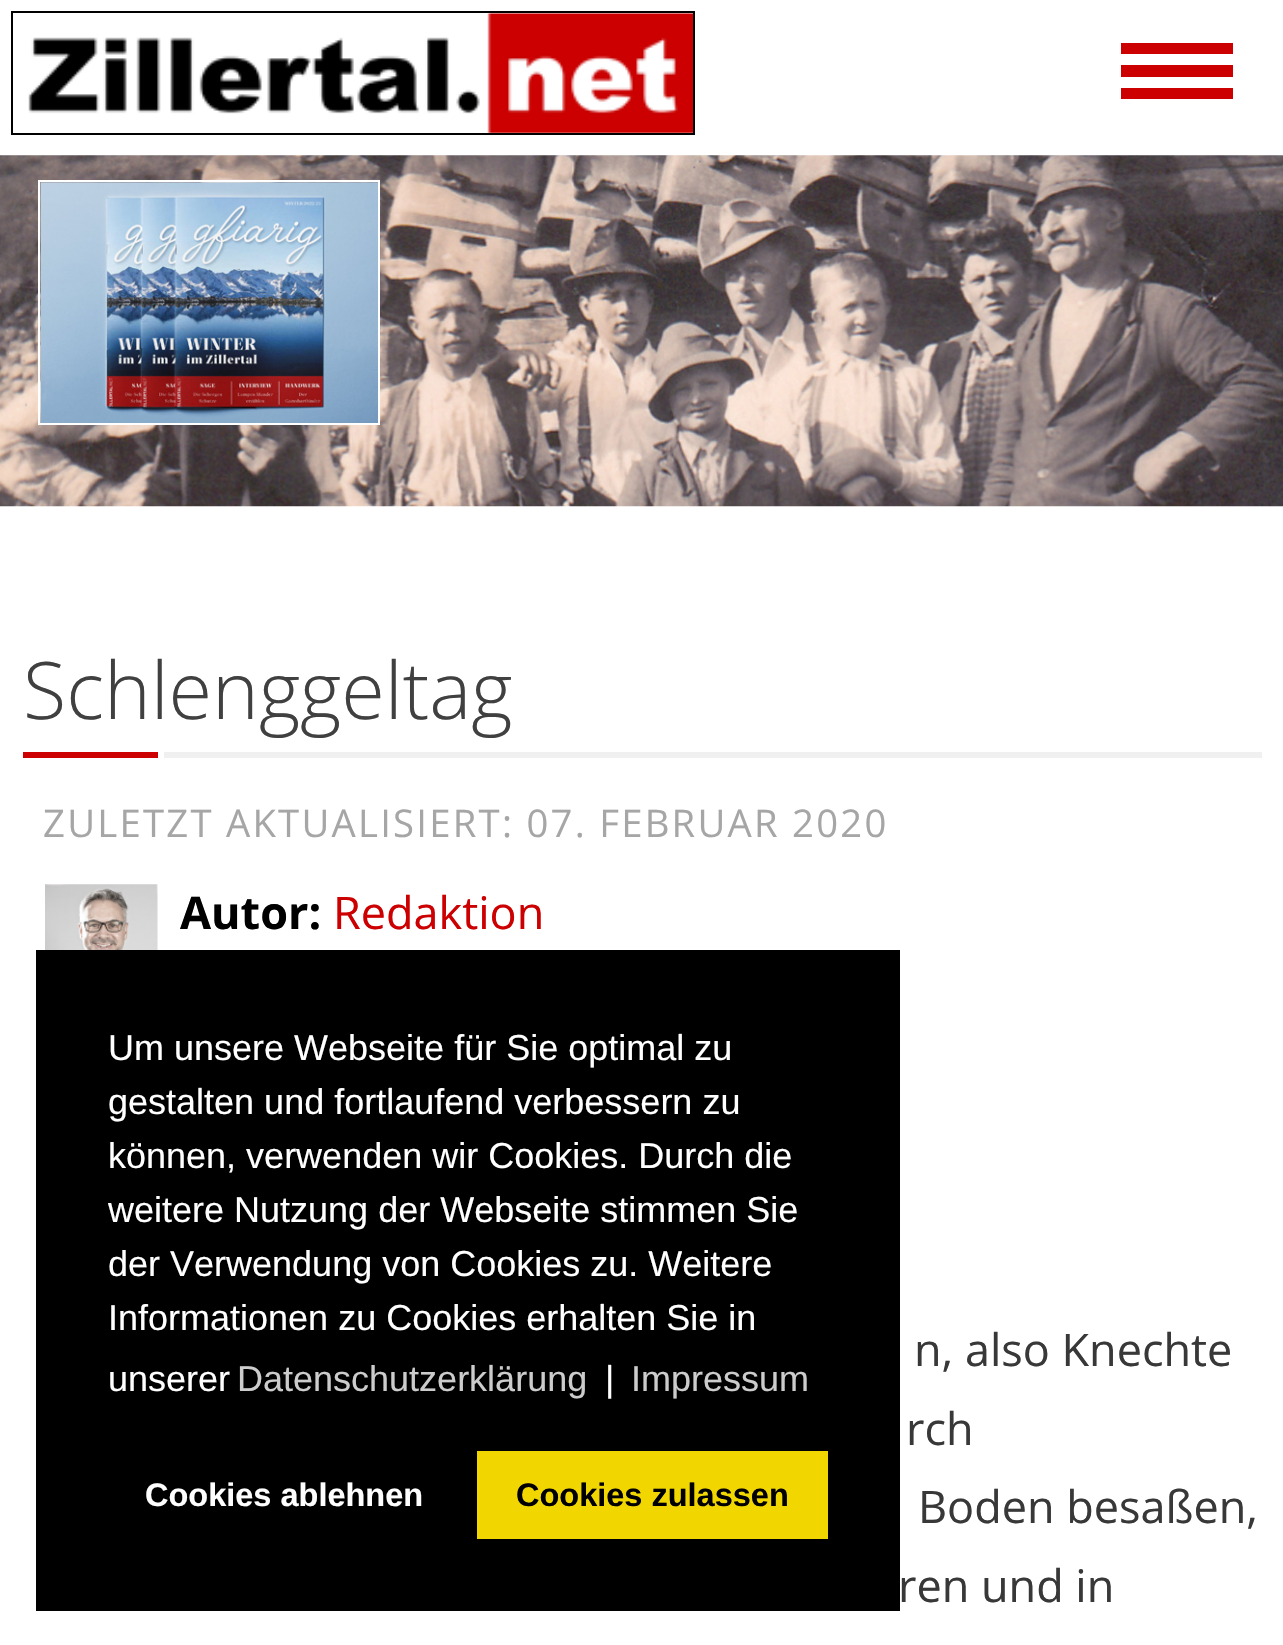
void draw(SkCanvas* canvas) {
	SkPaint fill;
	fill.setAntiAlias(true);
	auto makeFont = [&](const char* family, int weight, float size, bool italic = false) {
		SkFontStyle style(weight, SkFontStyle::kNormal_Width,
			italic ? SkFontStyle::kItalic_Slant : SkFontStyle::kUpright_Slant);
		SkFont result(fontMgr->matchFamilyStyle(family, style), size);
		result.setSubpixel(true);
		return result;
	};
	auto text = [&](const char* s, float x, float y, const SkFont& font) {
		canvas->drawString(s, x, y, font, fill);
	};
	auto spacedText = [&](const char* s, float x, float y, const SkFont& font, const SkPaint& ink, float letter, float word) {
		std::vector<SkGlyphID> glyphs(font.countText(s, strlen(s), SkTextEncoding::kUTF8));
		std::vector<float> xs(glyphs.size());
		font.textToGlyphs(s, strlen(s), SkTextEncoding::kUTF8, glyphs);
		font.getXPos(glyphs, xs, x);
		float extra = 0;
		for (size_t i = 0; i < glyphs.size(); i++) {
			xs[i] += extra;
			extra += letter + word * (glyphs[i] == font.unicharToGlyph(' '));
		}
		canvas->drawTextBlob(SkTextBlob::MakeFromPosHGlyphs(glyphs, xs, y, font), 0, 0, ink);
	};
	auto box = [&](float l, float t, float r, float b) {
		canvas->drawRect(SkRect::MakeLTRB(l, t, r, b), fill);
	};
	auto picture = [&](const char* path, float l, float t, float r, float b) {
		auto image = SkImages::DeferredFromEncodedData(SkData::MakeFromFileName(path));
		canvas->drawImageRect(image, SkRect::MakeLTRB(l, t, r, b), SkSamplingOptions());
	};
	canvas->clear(0xFFFFFFFF);
	fill.setStyle(SkPaint::kStroke_Style);
	fill.setStrokeWidth(2);
	fill.setColor(0xFF000000);
	canvas->drawRect(SkRect::MakeLTRB(12, 12, 694, 134), fill);
	picture("image0.png", 28, 13, 693, 133);
	fill.setStyle(SkPaint::kFill_Style);
	fill.setColor(0xFFCC0001);
	box(1121, 43, 1233, 54);
	box(1121, 65, 1233, 77);
	box(1121, 88, 1233, 99);
	picture("image1.png", 0, 155, 1283, 507);
	fill.setColor(0x33FFFFFF);
	canvas->drawRect(SkRect::MakeLTRB(39, 181, 379, 424), fill);
	fill.setStyle(SkPaint::kStroke_Style);
	fill.setColor(0xFFFFFFFF);
	canvas->drawRect(SkRect::MakeLTRB(39, 181, 379, 424), fill);
	picture("image2.png", 40, 182, 378, 423);
	fill.setStyle(SkPaint::kFill_Style);
	fill.setColor(0xFFCC0001);
	box(23, 752, 158, 758);
	fill.setColor(0xFFF0F0F0);
	box(164, 752, 1262, 758);
	picture("image3.png", 45, 884, 158, 950);
	fill.setColor(0xFF000000);
	box(36, 950, 900, 1611);
	fill.setColor(0xFFF1D600);
	box(477, 1451, 828, 1539);
	auto font1 = makeFont("Open Sans", 300, 79.25f);
	fill.setColor(0xFF404040);
	text("Schlenggeltag", 23, 719, font1);
	auto font2 = makeFont("Open Sans", 400, 38.25f);
	fill.setColor(0xFFA6A6A6);
	spacedText("ZULETZT AKTUALISIERT: 07. FEBRUAR 2020", 43, 837, font2, fill, 2.25f, 0);
	auto font3 = makeFont("Open Sans", 700, 45);
	fill.setColor(0xFF000000);
	text("Autor:", 180, 929, font3);
	auto font4 = makeFont("Open Sans", 400, 45);
	fill.setColor(0xFFCC0001);
	text("Redaktion", 333, 929, font4);
	fill.setColor(0xFF383838);
	text("n, also Knechte", 914, 1366, font4);
	text("rch", 906, 1445, font4);
	text("Boden besaßen,", 918, 1523, font4);
	text("ren und in", 898, 1602, font4);
	auto font5 = makeFont("Liberation Sans", 400, 36);
	fill.setColor(0xFFFFFFFF);
	text("Um unsere Webseite für Sie optimal zu", 108, 1060, font5);
	text("gestalten und fortlaufend verbessern zu", 108, 1114, font5);
	text("können, verwenden wir Cookies. Durch die", 108, 1168, font5);
	text("weitere Nutzung der Webseite stimmen Sie", 108, 1222, font5);
	text("der Verwendung von Cookies zu. Weitere", 108, 1276, font5);
	text("Informationen zu Cookies erhalten Sie in", 108, 1330, font5);
	text("unserer", 108, 1391, font5);
	fill.setColor(0xFFCCCCCC);
	text("Datenschutzerklärung", 237, 1391, font5);
	fill.setColor(0xFFFFFFFF);
	text("|", 605, 1391, font5);
	fill.setColor(0xFFCCCCCC);
	text("Impressum", 631, 1391, font5);
	auto font6 = makeFont("Liberation Sans", 700, 32.5f);
	fill.setColor(0xFFFFFFFF);
	text("Cookies ablehnen", 145, 1506, font6);
	fill.setColor(0xFF000000);
	text("Cookies zulassen", 516, 1506, font6);
}
